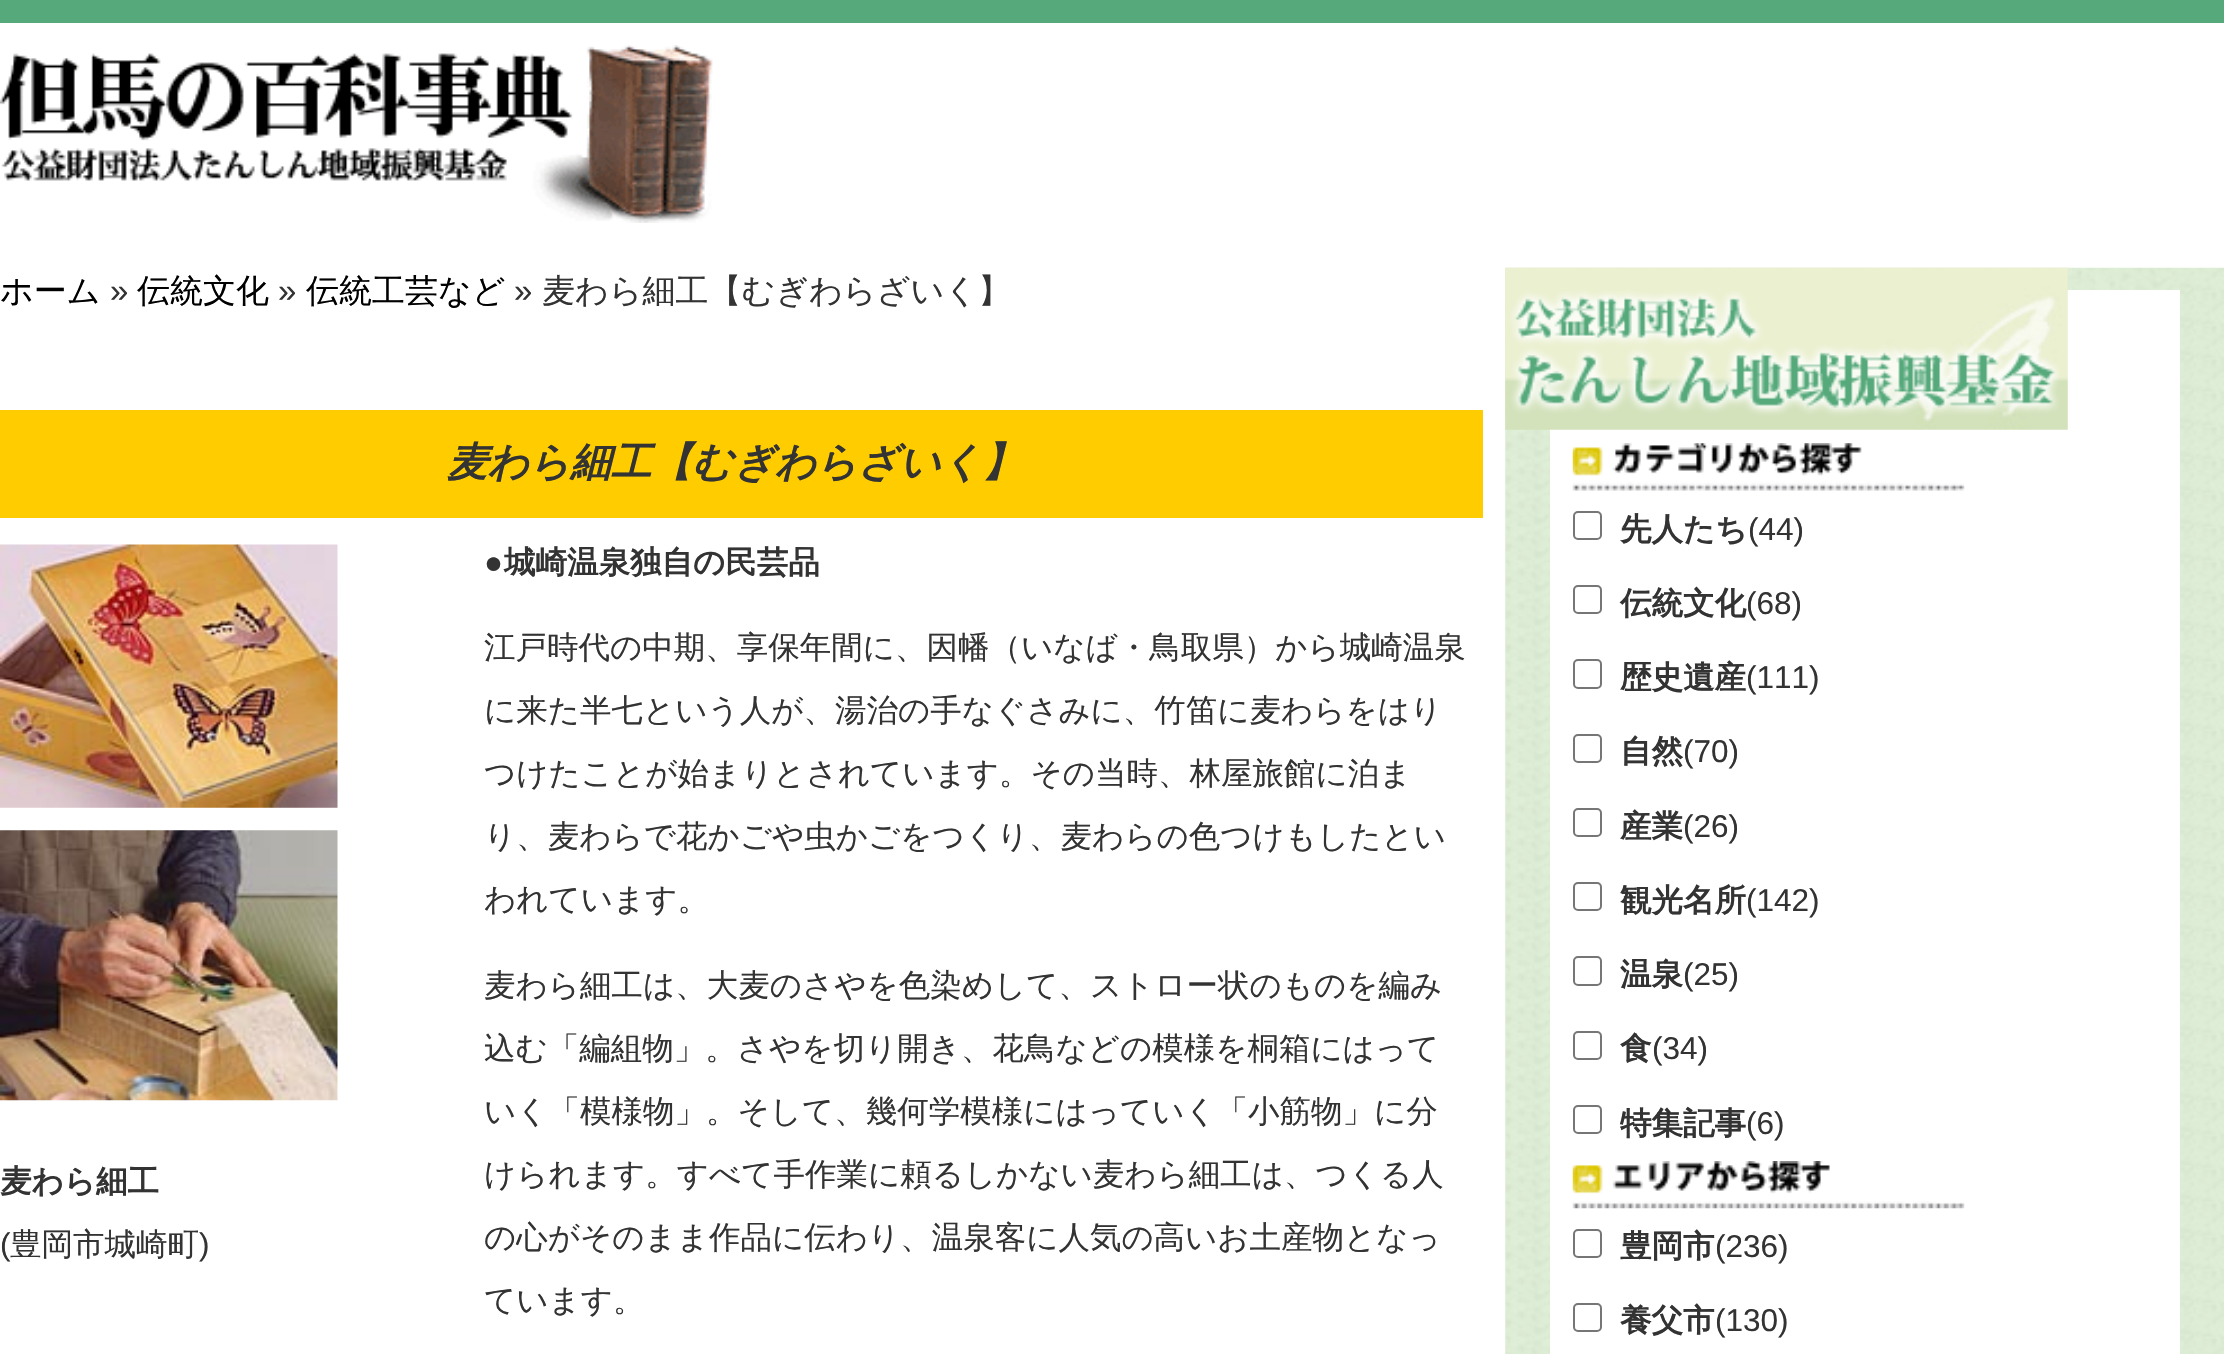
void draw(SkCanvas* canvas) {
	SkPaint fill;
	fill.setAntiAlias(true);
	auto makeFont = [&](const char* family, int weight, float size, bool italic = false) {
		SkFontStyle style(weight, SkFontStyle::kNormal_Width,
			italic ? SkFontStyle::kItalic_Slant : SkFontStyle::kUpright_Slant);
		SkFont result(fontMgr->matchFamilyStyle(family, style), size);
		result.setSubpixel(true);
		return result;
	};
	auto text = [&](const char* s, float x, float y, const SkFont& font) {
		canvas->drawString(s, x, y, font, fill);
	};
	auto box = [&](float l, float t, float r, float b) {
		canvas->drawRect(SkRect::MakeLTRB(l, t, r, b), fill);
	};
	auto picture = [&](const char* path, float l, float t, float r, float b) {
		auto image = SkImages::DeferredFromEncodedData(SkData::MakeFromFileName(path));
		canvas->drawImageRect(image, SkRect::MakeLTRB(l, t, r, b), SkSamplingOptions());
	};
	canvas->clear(0xFFFFFFFF);
	fill.setColor(0xFF55A97B);
	box(0, 0, 2224, 23);
	picture("image0.png", 0, 45, 713, 223);
	fill.setColor(0xFFFFCC00);
	box(0, 410, 1483, 518);
	picture("image1.png", 0, 544, 338, 808);
	picture("image2.png", 0, 830, 338, 1101);
	picture("image4.png", 1505, 267, 2224, 1354);
	fill.setColor(0xFFFFFFFF);
	box(1550, 290, 2180, 1354);
	picture("image3.png", 1505, 267, 2068, 430);
	picture("image5.png", 1572, 443, 1965, 491);
	fill.setStyle(SkPaint::kStroke_Style);
	fill.setStrokeWidth(2);
	fill.setColor(0xFF767676);
	canvas->drawRoundRect(SkRect::MakeLTRB(1574, 512, 1601, 539), 4, 4, fill);
	canvas->drawRoundRect(SkRect::MakeLTRB(1574, 586, 1601, 613), 4, 4, fill);
	canvas->drawRoundRect(SkRect::MakeLTRB(1574, 660, 1601, 688), 4, 4, fill);
	canvas->drawRoundRect(SkRect::MakeLTRB(1574, 735, 1601, 762), 4, 4, fill);
	canvas->drawRoundRect(SkRect::MakeLTRB(1574, 809, 1601, 836), 4, 4, fill);
	canvas->drawRoundRect(SkRect::MakeLTRB(1574, 883, 1601, 910), 4, 4, fill);
	canvas->drawRoundRect(SkRect::MakeLTRB(1574, 957, 1601, 985), 4, 4, fill);
	canvas->drawRoundRect(SkRect::MakeLTRB(1574, 1032, 1601, 1059), 4, 4, fill);
	canvas->drawRoundRect(SkRect::MakeLTRB(1574, 1106, 1601, 1133), 4, 4, fill);
	picture("image6.png", 1572, 1161, 1965, 1209);
	canvas->drawRoundRect(SkRect::MakeLTRB(1574, 1230, 1601, 1257), 4, 4, fill);
	canvas->drawRoundRect(SkRect::MakeLTRB(1574, 1304, 1601, 1331), 4, 4, fill);
	auto font1 = makeFont("WenQuanYi Zen Hei", 500, 33);
	fill.setStyle(SkPaint::kFill_Style);
	fill.setColor(0xFF000000);
	text("ホーム", 0, 302, font1);
	auto font2 = makeFont("Liberation Sans", 400, 33);
	fill.setColor(0xFF333333);
	text("»", 110, 302, font2);
	fill.setColor(0xFF000000);
	text("伝統文化", 137, 302, font1);
	fill.setColor(0xFF333333);
	text("»", 278, 302, font2);
	fill.setColor(0xFF000000);
	text("伝統工芸など", 306, 302, font1);
	fill.setColor(0xFF333333);
	text("»", 514, 302, font2);
	text("麦わら細工【むぎわらざいく】", 542, 302, font1);
	auto font3 = makeFont("WenQuanYi Zen Hei", 700, 40.5f, true);
	text("麦わら細工【むぎわらざいく】", 447, 476, font3);
	auto font4 = makeFont("WenQuanYi Zen Hei", 700, 31.5f);
	text("麦わら細工", 0, 1192, font4);
	auto font5 = makeFont("Liberation Sans", 400, 31.5f);
	text("(", 0, 1255, font5);
	auto font6 = makeFont("WenQuanYi Zen Hei", 500, 31.5f);
	text("豊岡市城崎町", 10, 1255, font6);
	text(")", 199, 1255, font5);
	auto font7 = makeFont("Liberation Sans", 700, 31.5f);
	text("●", 484, 573, font7);
	text("城崎温泉独自の民芸品", 504, 573, font4);
	text("江戸時代の中期、享保年間に、因幡（いなば・鳥取県）から城崎温泉", 484, 658, font6);
	text("に来た半七という人が、湯治の手なぐさみに、竹笛に麦わらをはり", 484, 721, font6);
	text("つけたことが始まりとされています。その当時、林屋旅館に泊ま", 484, 784, font6);
	text("り、麦わらで花かごや虫かごをつくり、麦わらの色つけもしたとい", 484, 847, font6);
	text("われています。", 484, 910, font6);
	text("麦わら細工は、大麦のさやを色染めして、ストロー状のものを編み", 484, 996, font6);
	text("込む「編組物」。さやを切り開き、花鳥などの模様を桐箱にはって", 484, 1059, font6);
	text("いく「模様物」。そして、幾何学模様にはっていく「小筋物」に分", 484, 1122, font6);
	text("けられます。すべて手作業に頼るしかない麦わら細工は、つくる人", 484, 1185, font6);
	text("の心がそのまま作品に伝わり、温泉客に人気の高いお土産物となっ", 484, 1248, font6);
	text("ています。", 484, 1311, font6);
	text("先人たち", 1620, 540, font4);
	text("(44)", 1748, 540, font5);
	text("伝統文化", 1620, 614, font4);
	text("(68)", 1746, 614, font5);
	text("歴史遺産", 1620, 688, font4);
	text("(111)", 1746, 688, font5);
	text("自然", 1620, 762, font4);
	text("(70)", 1683, 762, font5);
	text("産業", 1620, 837, font4);
	text("(26)", 1683, 837, font5);
	text("観光名所", 1620, 911, font4);
	text("(142)", 1746, 911, font5);
	text("温泉", 1620, 985, font4);
	text("(25)", 1683, 985, font5);
	text("食", 1620, 1059, font4);
	text("(34)", 1652, 1059, font5);
	text("特集記事", 1620, 1134, font4);
	text("(6)", 1746, 1134, font5);
	text("豊岡市", 1620, 1257, font4);
	text("(236)", 1715, 1257, font5);
	text("養父市", 1620, 1331, font4);
	text("(130)", 1715, 1331, font5);
}
